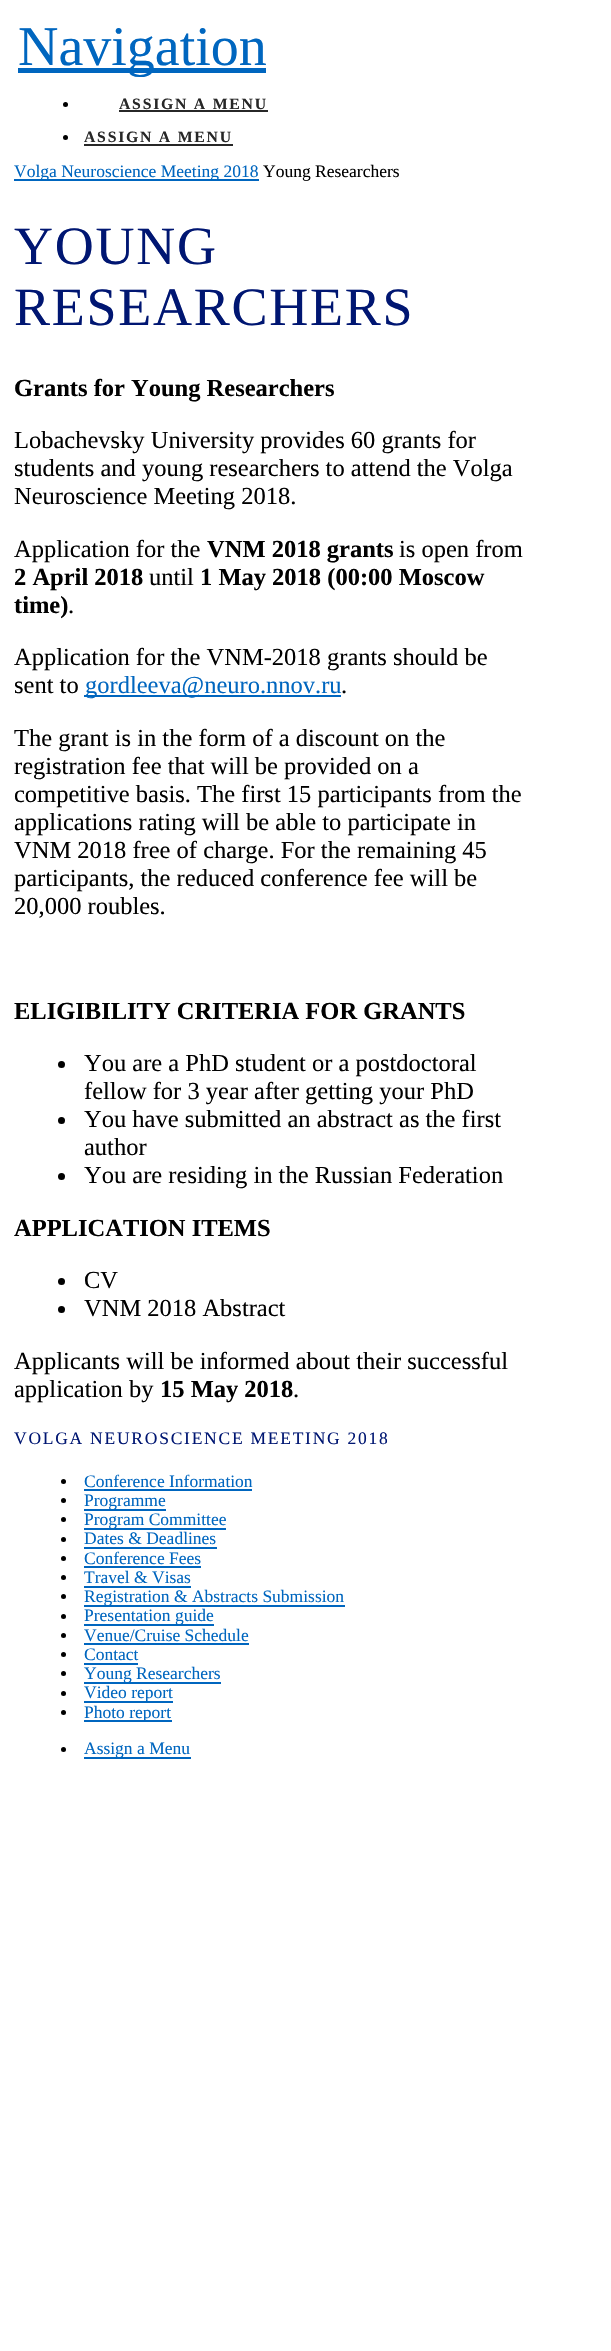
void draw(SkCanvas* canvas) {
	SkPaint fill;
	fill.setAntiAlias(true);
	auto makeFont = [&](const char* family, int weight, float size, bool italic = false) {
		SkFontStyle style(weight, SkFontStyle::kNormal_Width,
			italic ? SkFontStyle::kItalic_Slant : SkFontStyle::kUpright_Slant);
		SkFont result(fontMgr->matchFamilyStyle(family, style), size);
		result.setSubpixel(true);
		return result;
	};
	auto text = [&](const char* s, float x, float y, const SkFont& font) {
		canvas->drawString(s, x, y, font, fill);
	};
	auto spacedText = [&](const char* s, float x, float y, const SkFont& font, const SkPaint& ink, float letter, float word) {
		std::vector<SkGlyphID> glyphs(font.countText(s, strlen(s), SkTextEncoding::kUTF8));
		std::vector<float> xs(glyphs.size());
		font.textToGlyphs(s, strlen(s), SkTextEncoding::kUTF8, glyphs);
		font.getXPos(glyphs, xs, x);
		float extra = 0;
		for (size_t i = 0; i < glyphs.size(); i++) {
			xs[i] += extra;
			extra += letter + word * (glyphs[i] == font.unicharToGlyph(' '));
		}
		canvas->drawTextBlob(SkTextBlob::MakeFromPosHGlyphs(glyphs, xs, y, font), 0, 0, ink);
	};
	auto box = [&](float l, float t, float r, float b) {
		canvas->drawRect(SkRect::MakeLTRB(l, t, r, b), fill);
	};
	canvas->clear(0xFFFFFFFF);
	fill.setColor(0xFF0066BF);
	box(18, 68, 266, 73);
	fill.setColor(0xFF000000);
	canvas->drawCircle(65.5f, 104.5f, 2.5f, fill);
	fill.setColor(0xFF272727);
	box(119, 110, 268, 112);
	fill.setColor(0xFF000000);
	canvas->drawCircle(65.5f, 137.5f, 2.5f, fill);
	fill.setColor(0xFF272727);
	box(84, 144, 233, 146);
	fill.setColor(0xFF0066BF);
	box(14, 179, 259, 181);
	box(84, 695, 341, 697);
	fill.setColor(0xFF000000);
	canvas->drawCircle(61.5f, 1064.5f, 3.5f, fill);
	canvas->drawCircle(61.5f, 1120.5f, 3.5f, fill);
	canvas->drawCircle(61.5f, 1176.5f, 3.5f, fill);
	canvas->drawCircle(61.5f, 1281.5f, 3.5f, fill);
	canvas->drawCircle(61.5f, 1309.5f, 3.5f, fill);
	canvas->drawCircle(63.5f, 1481.5f, 2.5f, fill);
	fill.setColor(0xFF0066BF);
	box(84, 1489, 252, 1491);
	fill.setColor(0xFF000000);
	canvas->drawCircle(63.5f, 1500.5f, 2.5f, fill);
	fill.setColor(0xFF0066BF);
	box(84, 1509, 166, 1511);
	fill.setColor(0xFF000000);
	canvas->drawCircle(63.5f, 1519.5f, 2.5f, fill);
	fill.setColor(0xFF0066BF);
	box(84, 1528, 226, 1530);
	fill.setColor(0xFF000000);
	canvas->drawCircle(63.5f, 1539.5f, 2.5f, fill);
	fill.setColor(0xFF0066BF);
	box(84, 1547, 217, 1549);
	fill.setColor(0xFF000000);
	canvas->drawCircle(63.5f, 1558.5f, 2.5f, fill);
	fill.setColor(0xFF0066BF);
	box(84, 1566, 201, 1568);
	fill.setColor(0xFF000000);
	canvas->drawCircle(63.5f, 1577.5f, 2.5f, fill);
	fill.setColor(0xFF0066BF);
	box(84, 1586, 191, 1588);
	fill.setColor(0xFF000000);
	canvas->drawCircle(63.5f, 1596.5f, 2.5f, fill);
	fill.setColor(0xFF0066BF);
	box(84, 1605, 345, 1607);
	fill.setColor(0xFF000000);
	canvas->drawCircle(63.5f, 1616.5f, 2.5f, fill);
	fill.setColor(0xFF0066BF);
	box(84, 1624, 214, 1626);
	fill.setColor(0xFF000000);
	canvas->drawCircle(63.5f, 1635.5f, 2.5f, fill);
	fill.setColor(0xFF0066BF);
	box(84, 1643, 249, 1645);
	fill.setColor(0xFF000000);
	canvas->drawCircle(63.5f, 1654.5f, 2.5f, fill);
	fill.setColor(0xFF0066BF);
	box(84, 1663, 138, 1665);
	fill.setColor(0xFF000000);
	canvas->drawCircle(63.5f, 1673.5f, 2.5f, fill);
	fill.setColor(0xFF0066BF);
	box(84, 1682, 221, 1684);
	fill.setColor(0xFF000000);
	canvas->drawCircle(63.5f, 1693.5f, 2.5f, fill);
	fill.setColor(0xFF0066BF);
	box(84, 1701, 173, 1703);
	fill.setColor(0xFF000000);
	canvas->drawCircle(63.5f, 1712.5f, 2.5f, fill);
	fill.setColor(0xFF0066BF);
	box(84, 1720, 172, 1722);
	fill.setColor(0xFF000000);
	canvas->drawCircle(63.5f, 1749.5f, 2.5f, fill);
	fill.setColor(0xFF0066BF);
	box(84, 1757, 191, 1759);
	auto font1 = makeFont("Liberation Serif", 400, 56);
	text("Navigation", 18, 65, font1);
	auto font2 = makeFont("Liberation Serif", 700, 15.75f);
	fill.setColor(0xFF272727);
	spacedText("ASSIGN A MENU", 119, 109, font2, fill, 1.75f, 0);
	spacedText("ASSIGN A MENU", 84, 142, font2, fill, 1.75f, 0);
	auto font3 = makeFont("Liberation Serif", 400, 17.5f);
	fill.setColor(0xFF0066BF);
	text("Volga Neuroscience Meeting 2018", 14, 177, font3);
	fill.setColor(0xFF000000);
	text("Young Researchers", 263, 177, font3);
	auto font4 = makeFont("Liberation Serif", 400, 54);
	fill.setColor(0xFF001672);
	spacedText("YOUNG", 14, 264, font4, fill, 1.75f, 0);
	spacedText("RESEARCHERS", 14, 325, font4, fill, 1.75f, 0);
	auto font5 = makeFont("Liberation Serif", 700, 24.5f);
	fill.setColor(0xFF000000);
	text("Grants for Young Researchers", 14, 396, font5);
	auto font6 = makeFont("Liberation Serif", 400, 24.5f);
	text("Lobachevsky University provides 60 grants for", 14, 448, font6);
	text("students and young researchers to attend the Volga", 14, 476, font6);
	text("Neuroscience Meeting 2018.", 14, 504, font6);
	text("Application for the", 14, 557, font6);
	text("VNM 2018 grants", 207, 557, font5);
	text("is open from", 399, 557, font6);
	text("2 April 2018", 14, 585, font5);
	text("until", 149, 585, font6);
	text("1 May 2018 (00:00 Moscow", 200, 585, font5);
	text("time)", 14, 613, font5);
	text(".", 68, 613, font6);
	text("Application for the VNM-2018 grants should be", 14, 665, font6);
	text("sent to", 14, 693, font6);
	fill.setColor(0xFF0066BF);
	text("gordleeva@neuro.nnov.ru", 85, 693, font6);
	fill.setColor(0xFF000000);
	text(".", 341, 693, font6);
	text("The grant is in the form of a discount on the", 14, 746, font6);
	text("registration fee that will be provided on a", 14, 774, font6);
	text("competitive basis. The first 15 participants from the", 14, 802, font6);
	text("applications rating will be able to participate in", 14, 830, font6);
	text("VNM 2018 free of charge. For the remaining 45", 14, 858, font6);
	text("participants, the reduced conference fee will be", 14, 886, font6);
	text("20,000 roubles.", 14, 914, font6);
	text("ELIGIBILITY CRITERIA FOR GRANTS", 14, 1019, font5);
	text("You are a PhD student or a postdoctoral", 84, 1071, font6);
	text("fellow for 3 year after getting your PhD", 84, 1099, font6);
	text("You have submitted an abstract as the first", 84, 1127, font6);
	text("author", 84, 1155, font6);
	text("You are residing in the Russian Federation", 84, 1183, font6);
	text("APPLICATION ITEMS", 14, 1236, font5);
	text("CV", 84, 1288, font6);
	text("VNM 2018 Abstract", 84, 1316, font6);
	text("Applicants will be informed about their successful", 14, 1369, font6);
	text("application by", 14, 1397, font6);
	text("15 May 2018", 160, 1397, font5);
	text(".", 293, 1397, font6);
	fill.setColor(0xFF001672);
	spacedText("VOLGA NEUROSCIENCE MEETING 2018", 14, 1444, font3, fill, 1.75f, 0);
	fill.setColor(0xFF0066BF);
	text("Conference Information", 84, 1487, font3);
	text("Programme", 84, 1506, font3);
	text("Program Committee", 84, 1525, font3);
	text("Dates & Deadlines", 84, 1544, font3);
	text("Conference Fees", 84, 1564, font3);
	text("Travel & Visas", 84, 1583, font3);
	text("Registration & Abstracts Submission", 84, 1602, font3);
	text("Presentation guide", 84, 1621, font3);
	text("Venue/Cruise Schedule", 84, 1641, font3);
	text("Contact", 84, 1660, font3);
	text("Young Researchers", 84, 1679, font3);
	text("Video report", 84, 1698, font3);
	text("Photo report", 84, 1718, font3);
	text("Assign a Menu", 84, 1754, font3);
}
